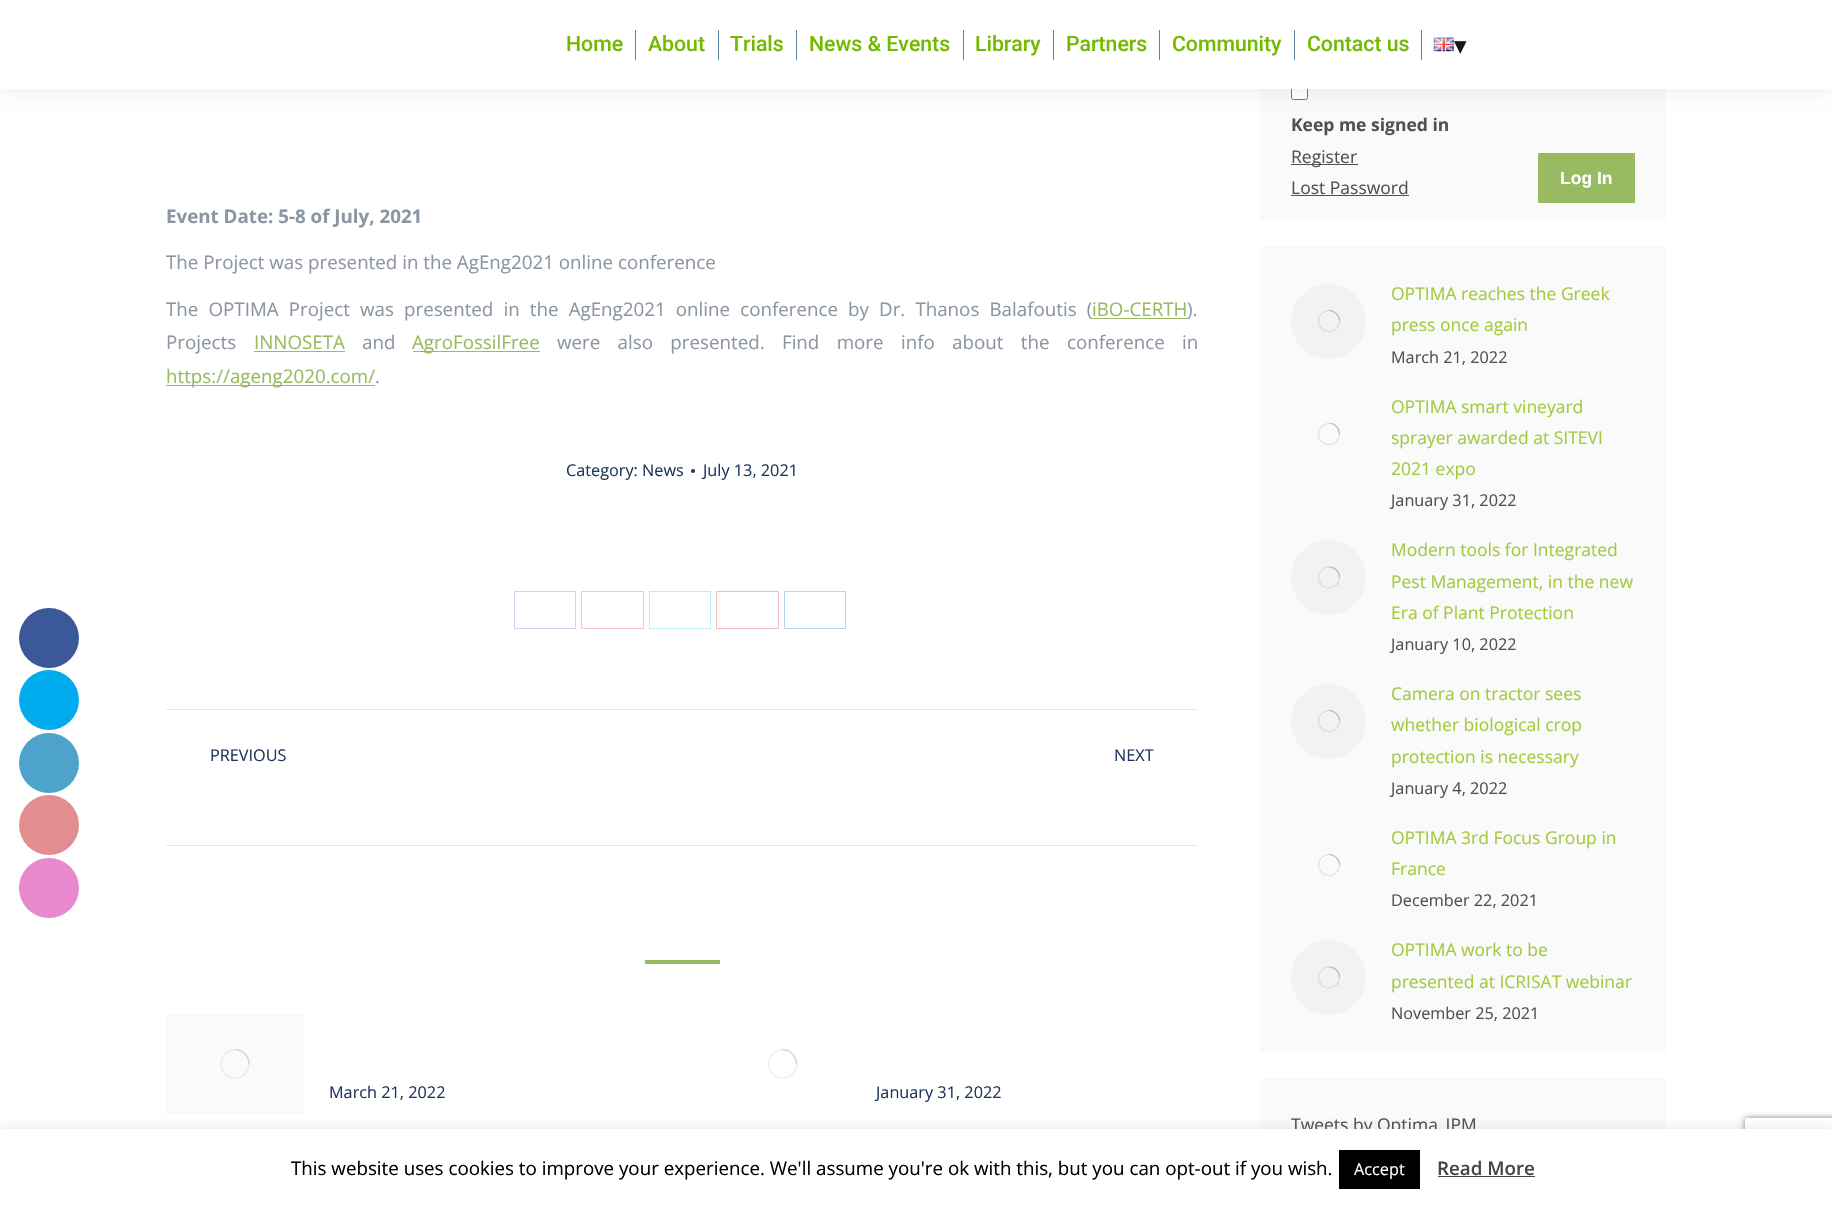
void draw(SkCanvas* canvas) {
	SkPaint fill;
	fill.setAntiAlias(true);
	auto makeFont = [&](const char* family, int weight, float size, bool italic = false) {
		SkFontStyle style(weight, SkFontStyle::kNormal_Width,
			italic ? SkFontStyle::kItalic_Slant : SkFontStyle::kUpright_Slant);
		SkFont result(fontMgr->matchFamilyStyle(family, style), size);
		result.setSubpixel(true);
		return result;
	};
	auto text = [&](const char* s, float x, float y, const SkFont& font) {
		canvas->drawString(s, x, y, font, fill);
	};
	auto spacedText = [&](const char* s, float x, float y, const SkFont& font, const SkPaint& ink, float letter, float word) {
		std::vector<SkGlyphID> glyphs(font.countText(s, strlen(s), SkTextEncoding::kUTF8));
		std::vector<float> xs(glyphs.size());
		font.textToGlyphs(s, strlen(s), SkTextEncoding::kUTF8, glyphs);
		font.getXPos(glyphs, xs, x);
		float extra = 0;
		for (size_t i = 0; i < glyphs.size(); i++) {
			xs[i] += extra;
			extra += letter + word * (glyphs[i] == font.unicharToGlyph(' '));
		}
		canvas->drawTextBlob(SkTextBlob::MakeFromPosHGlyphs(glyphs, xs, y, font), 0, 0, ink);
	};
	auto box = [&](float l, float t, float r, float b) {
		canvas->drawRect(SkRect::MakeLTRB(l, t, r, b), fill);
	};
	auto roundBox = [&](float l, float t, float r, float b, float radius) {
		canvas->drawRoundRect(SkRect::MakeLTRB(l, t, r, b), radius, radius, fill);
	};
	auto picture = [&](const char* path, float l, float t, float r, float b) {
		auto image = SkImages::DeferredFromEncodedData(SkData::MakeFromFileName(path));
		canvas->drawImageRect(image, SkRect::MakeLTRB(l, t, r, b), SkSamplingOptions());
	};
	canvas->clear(0xFFFFFFFF);
	fill.setColor(0xFFFAFAFA);
	roundBox(1260, -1, 1666, 221, 1);
	fill.setColor(0xFFFFFFFF);
	canvas->drawRoundRect(SkRect::MakeLTRB(1291.5f, 84.5f, 1307.5f, 99.5f), 2, 2, fill);
	fill.setStyle(SkPaint::kStroke_Style);
	fill.setStrokeWidth(1);
	fill.setColor(0xFF767676);
	canvas->drawRoundRect(SkRect::MakeLTRB(1291.5f, 84.5f, 1307.5f, 99.5f), 2, 2, fill);
	fill.setStyle(SkPaint::kFill_Style);
	fill.setColor(0x12000000);
	fill.setMaskFilter(SkMaskFilter::MakeBlur(kNormal_SkBlurStyle, 9.5f));
	canvas->drawRect(SkRect::MakeLTRB(-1, -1, 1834, 90), fill);
	fill.setMaskFilter(nullptr);
	fill.setColor(0xFFFFFFFF);
	box(0, 0, 1832, 89);
	fill.setColor(0xFF5485A3);
	box(635, 30, 636, 60);
	box(718, 30, 719, 60);
	box(796, 30, 797, 60);
	box(963, 30, 964, 60);
	box(1053, 30, 1054, 60);
	box(1159, 30, 1160, 60);
	box(1294, 30, 1295, 60);
	box(1421, 30, 1422, 60);
	picture("image0.png", 1433, 37, 1454, 52);
	fill.setColor(0xFF3B5998);
	canvas->drawCircle(49, 638, 30, fill);
	fill.setColor(0xFF00ACED);
	canvas->drawCircle(49, 700, 30, fill);
	fill.setColor(0xFF4DA3CC);
	canvas->drawCircle(49, 763, 30, fill);
	fill.setColor(0xFFE48D91);
	canvas->drawCircle(49, 825, 30, fill);
	fill.setColor(0xFFE888CE);
	canvas->drawCircle(49, 888, 30, fill);
	fill.setColor(0xFF98BA60);
	box(1091, 318, 1188, 319);
	box(254, 351, 345, 352);
	box(413, 351, 540, 352);
	box(166, 385, 375, 386);
	fill.setColor(0xFF1F365C);
	canvas->drawCircle(693, 471, 2, fill);
	fill.setStyle(SkPaint::kStroke_Style);
	fill.setColor(0xFFC9D2EE);
	canvas->drawRect(SkRect::MakeLTRB(514.5f, 591.5f, 575.5f, 628.5f), fill);
	fill.setColor(0xFFF8C6C2);
	canvas->drawRect(SkRect::MakeLTRB(581.5f, 591.5f, 643.5f, 628.5f), fill);
	fill.setColor(0xFFBFECF9);
	canvas->drawRect(SkRect::MakeLTRB(649.5f, 591.5f, 710.5f, 628.5f), fill);
	fill.setColor(0xFFF1BFC2);
	canvas->drawRect(SkRect::MakeLTRB(716.5f, 591.5f, 778.5f, 628.5f), fill);
	fill.setColor(0xFFB3D7EE);
	canvas->drawRect(SkRect::MakeLTRB(784.5f, 591.5f, 845.5f, 628.5f), fill);
	fill.setStyle(SkPaint::kFill_Style);
	fill.setColor(0xFFE7E7E7);
	box(166, 709, 1198, 710);
	box(166, 845, 1198, 846);
	fill.setColor(0xFF98BA60);
	box(645, 960, 720, 964);
	fill.setColor(0xFFF9FAFA);
	box(166, 1014, 304, 1114);
	fill.setStyle(SkPaint::kStroke_Style);
	fill.setStrokeWidth(1.6f);
	fill.setColor(0xFFEAECEE);
	canvas->drawCircle(235, 1064, 14, fill);
	fill.setColor(0x408C95A2);
	canvas->drawPath(SkPathBuilder().moveTo(249, 1064).cubicTo(249, 1056, 243, 1049.5f, 235, 1049.5f).detach(), fill);
	canvas->save();
	canvas->clipRect(SkRect::MakeLTRB(768, 1049, 798, 1079));
	fill.setColor(0xFFEFF0F2);
	canvas->drawCircle(782.5f, 1064, 14, fill);
	canvas->restore();
	fill.setColor(0x408C95A2);
	canvas->drawPath(SkPathBuilder().moveTo(796.5f, 1064).cubicTo(796.5f, 1056, 790.5f, 1049.5f, 782.5f, 1049.5f).detach(), fill);
	fill.setStyle(SkPaint::kFill_Style);
	fill.setColor(0xFF515151);
	box(1291, 164, 1358, 165);
	box(1291, 195, 1409, 196);
	fill.setColor(0xFF98BA60);
	roundBox(1538, 153, 1635, 203, 1);
	fill.setColor(0xFFFAFAFA);
	roundBox(1260, 246, 1666, 1053, 1);
	fill.setColor(0xFFF2F2F2);
	canvas->drawCircle(1328.5f, 321.5f, 37.5f, fill);
	fill.setStyle(SkPaint::kStroke_Style);
	fill.setStrokeWidth(1.2f);
	fill.setColor(0xFFDCDCDC);
	canvas->drawCircle(1329, 321, 10.5f, fill);
	fill.setColor(0x40515151);
	canvas->drawPath(SkPathBuilder().moveTo(1339.5f, 321).cubicTo(1339.5f, 315.5f, 1334.5f, 310.5f, 1329, 310.5f).detach(), fill);
	fill.setColor(0xFFE3E3E3);
	canvas->drawCircle(1329, 434, 10.5f, fill);
	canvas->save();
	canvas->clipRect(SkRect::MakeLTRB(1318, 423, 1340, 445));
	fill.setColor(0x40515151);
	canvas->drawPath(SkPathBuilder().moveTo(1339.5f, 434).cubicTo(1339.5f, 428, 1334.5f, 423, 1329, 423).detach(), fill);
	canvas->restore();
	fill.setStyle(SkPaint::kFill_Style);
	fill.setColor(0xFFF2F2F2);
	canvas->drawCircle(1328.5f, 577.5f, 37.5f, fill);
	fill.setStyle(SkPaint::kStroke_Style);
	fill.setColor(0xFFDCDCDC);
	canvas->drawCircle(1329, 577.5f, 10.5f, fill);
	fill.setColor(0x40515151);
	canvas->drawPath(SkPathBuilder().moveTo(1339.5f, 577.5f).cubicTo(1339.5f, 571.5f, 1334.5f, 567, 1329, 567).detach(), fill);
	fill.setStyle(SkPaint::kFill_Style);
	fill.setColor(0xFFF2F2F2);
	canvas->drawCircle(1328.5f, 721.5f, 37.5f, fill);
	fill.setStyle(SkPaint::kStroke_Style);
	fill.setColor(0xFFDCDCDC);
	canvas->drawCircle(1329, 721, 10.5f, fill);
	fill.setColor(0x40515151);
	canvas->drawPath(SkPathBuilder().moveTo(1339.5f, 721).cubicTo(1339.5f, 715.5f, 1334.5f, 710.5f, 1329, 710.5f).detach(), fill);
	fill.setColor(0xFFE3E3E3);
	canvas->drawCircle(1329, 865, 10.5f, fill);
	fill.setColor(0x40515151);
	canvas->drawPath(SkPathBuilder().moveTo(1339.5f, 865).cubicTo(1339.5f, 859, 1334.5f, 854.5f, 1329, 854.5f).detach(), fill);
	fill.setStyle(SkPaint::kFill_Style);
	fill.setColor(0xFFF2F2F2);
	canvas->drawCircle(1328.5f, 977.5f, 37.5f, fill);
	fill.setStyle(SkPaint::kStroke_Style);
	fill.setColor(0xFFDCDCDC);
	canvas->drawCircle(1329, 977.5f, 10.5f, fill);
	fill.setColor(0x40515151);
	canvas->drawPath(SkPathBuilder().moveTo(1339.5f, 977.5f).cubicTo(1339.5f, 971.5f, 1334.5f, 967, 1329, 967).detach(), fill);
	fill.setStyle(SkPaint::kFill_Style);
	fill.setColor(0xFFFAFAFA);
	roundBox(1260, 1078, 1666, 1171, 1);
	fill.setColor(0x4DACABAB);
	fill.setMaskFilter(SkMaskFilter::MakeBlur(kNormal_SkBlurStyle, 6));
	canvas->drawRect(SkRect::MakeLTRB(0, 1128, 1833, 1209), fill);
	fill.setMaskFilter(nullptr);
	canvas->save();
	canvas->clipPath(SkPathBuilder(SkPathFillType::kEvenOdd).moveTo(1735, 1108).lineTo(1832, 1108).lineTo(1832, 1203).lineTo(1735, 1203).close().moveTo(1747.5f, 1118).lineTo(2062.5f, 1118).cubicTo(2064, 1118, 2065, 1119, 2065, 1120.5f).lineTo(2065, 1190.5f).cubicTo(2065, 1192, 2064, 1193, 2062.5f, 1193).lineTo(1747.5f, 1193).cubicTo(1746, 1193, 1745, 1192, 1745, 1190.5f).lineTo(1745, 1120.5f).cubicTo(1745, 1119, 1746, 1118, 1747.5f, 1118).close().detach(), true);
	fill.setColor(0xFF808080);
	fill.setMaskFilter(SkMaskFilter::MakeBlur(kNormal_SkBlurStyle, 3));
	canvas->drawRoundRect(SkRect::MakeLTRB(1745, 1118, 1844, 1193), 2.5f, 2.5f, fill);
	fill.setMaskFilter(nullptr);
	canvas->restore();
	auto font1 = makeFont("Roboto", 500, 21.25f);
	fill.setColor(0xFF72BA00);
	text("Home", 566, 51, font1);
	text("About", 648, 51, font1);
	text("Trials", 730, 51, font1);
	text("News & Events", 809, 51, font1);
	text("Library", 975, 51, font1);
	text("Partners", 1066, 51, font1);
	text("Community", 1172, 51, font1);
	text("Contact us", 1307, 51, font1);
	auto font2 = makeFont("DejaVu Sans", 400, 25);
	fill.setColor(0xFF171717);
	text("▾", 1454, 54, font2);
	auto font3 = makeFont("Open Sans", 700, 18.75f);
	fill.setColor(0xFF8C95A2);
	text("Event Date: 5-8 of July, 2021", 166, 223, font3);
	auto font4 = makeFont("Open Sans", 400, 18.75f);
	text("The Project was presented in the AgEng2021 online conference", 166, 269, font4);
	spacedText("The OPTIMA Project was presented in the AgEng2021 online conference by Dr. Thanos Balafoutis (", 166, 316, font4, fill, 0, 5.25f);
	fill.setColor(0xFF98BA60);
	text("iBO-CERTH", 1092, 316, font4);
	fill.setColor(0xFF8C95A2);
	text(").", 1187, 316, font4);
	text("Projects", 166, 349, font4);
	fill.setColor(0xFF98BA60);
	text("INNOSETA", 254, 349, font4);
	fill.setColor(0xFF8C95A2);
	text("and", 362, 349, font4);
	fill.setColor(0xFF98BA60);
	text("AgroFossilFree", 412, 349, font4);
	fill.setColor(0xFF8C95A2);
	spacedText("were also presented. Find more info about the conference in", 557, 349, font4, fill, 0, 12.5f);
	fill.setColor(0xFF98BA60);
	text("https://ageng2020.com/", 166, 383, font4);
	fill.setColor(0xFF8C95A2);
	text(".", 375, 383, font4);
	auto font5 = makeFont("Open Sans", 400, 16.25f);
	fill.setColor(0xFF1F365C);
	text("Category: News", 566, 476, font5);
	text("July 13, 2021", 703, 476, font5);
	text("PREVIOUS", 210, 761, font5);
	text("NEXT", 1114, 761, font5);
	text("March 21, 2022", 329, 1098, font5);
	text("January 31, 2022", 876, 1098, font5);
	auto font6 = makeFont("Open Sans", 700, 17.5f);
	fill.setColor(0xFF515151);
	text("Keep me signed in", 1291, 131, font6);
	auto font7 = makeFont("Open Sans", 400, 17.5f);
	text("Register", 1291, 163, font7);
	text("Lost Password", 1291, 194, font7);
	auto font8 = makeFont("Liberation Sans", 700, 17.5f);
	fill.setColor(0xFFFFFFFF);
	text("Log In", 1560, 184, font8);
	fill.setColor(0xFFA4CA3F);
	text("OPTIMA reaches the Greek", 1391, 300, font7);
	text("press once again", 1391, 331, font7);
	fill.setColor(0xFF515151);
	text("March 21, 2022", 1391, 363, font5);
	fill.setColor(0xFFA4CA3F);
	text("OPTIMA smart vineyard", 1391, 413, font7);
	text("sprayer awarded at SITEVI", 1391, 444, font7);
	text("2021 expo", 1391, 475, font7);
	fill.setColor(0xFF515151);
	text("January 31, 2022", 1391, 506, font5);
	fill.setColor(0xFFA4CA3F);
	text("Modern tools for Integrated", 1391, 556, font7);
	text("Pest Management, in the new", 1391, 588, font7);
	text("Era of Plant Protection", 1391, 619, font7);
	fill.setColor(0xFF515151);
	text("January 10, 2022", 1391, 650, font5);
	fill.setColor(0xFFA4CA3F);
	text("Camera on tractor sees", 1391, 700, font7);
	text("whether biological crop", 1391, 731, font7);
	text("protection is necessary", 1391, 763, font7);
	fill.setColor(0xFF515151);
	text("January 4, 2022", 1391, 794, font5);
	fill.setColor(0xFFA4CA3F);
	text("OPTIMA 3rd Focus Group in", 1391, 844, font7);
	text("France", 1391, 875, font7);
	fill.setColor(0xFF515151);
	text("December 22, 2021", 1391, 906, font5);
	fill.setColor(0xFFA4CA3F);
	text("OPTIMA work to be", 1391, 956, font7);
	text("presented at ICRISAT webinar", 1391, 988, font7);
	fill.setColor(0xFF515151);
	text("November 25, 2021", 1391, 1019, font5);
	text("Tweets by Optima_IPM", 1291, 1131, font7);
	fill.setColor(0xFFFFFFFF);
	box(0, 1129, 1832, 1209);
	fill.setColor(0xFF000000);
	text("This website uses cookies to improve your experience. We'll assume you're ok with this, but you can opt-out if you wish.", 291, 1175, font4);
	box(1339, 1150, 1420, 1189);
	fill.setColor(0xFFFFFFFF);
	text("Accept", 1354, 1175, font5);
	auto font9 = makeFont("Open Sans", 600, 18.75f);
	fill.setColor(0xFF444444);
	text("Read More", 1437, 1175, font9);
	box(1438, 1176, 1535, 1177);
}
